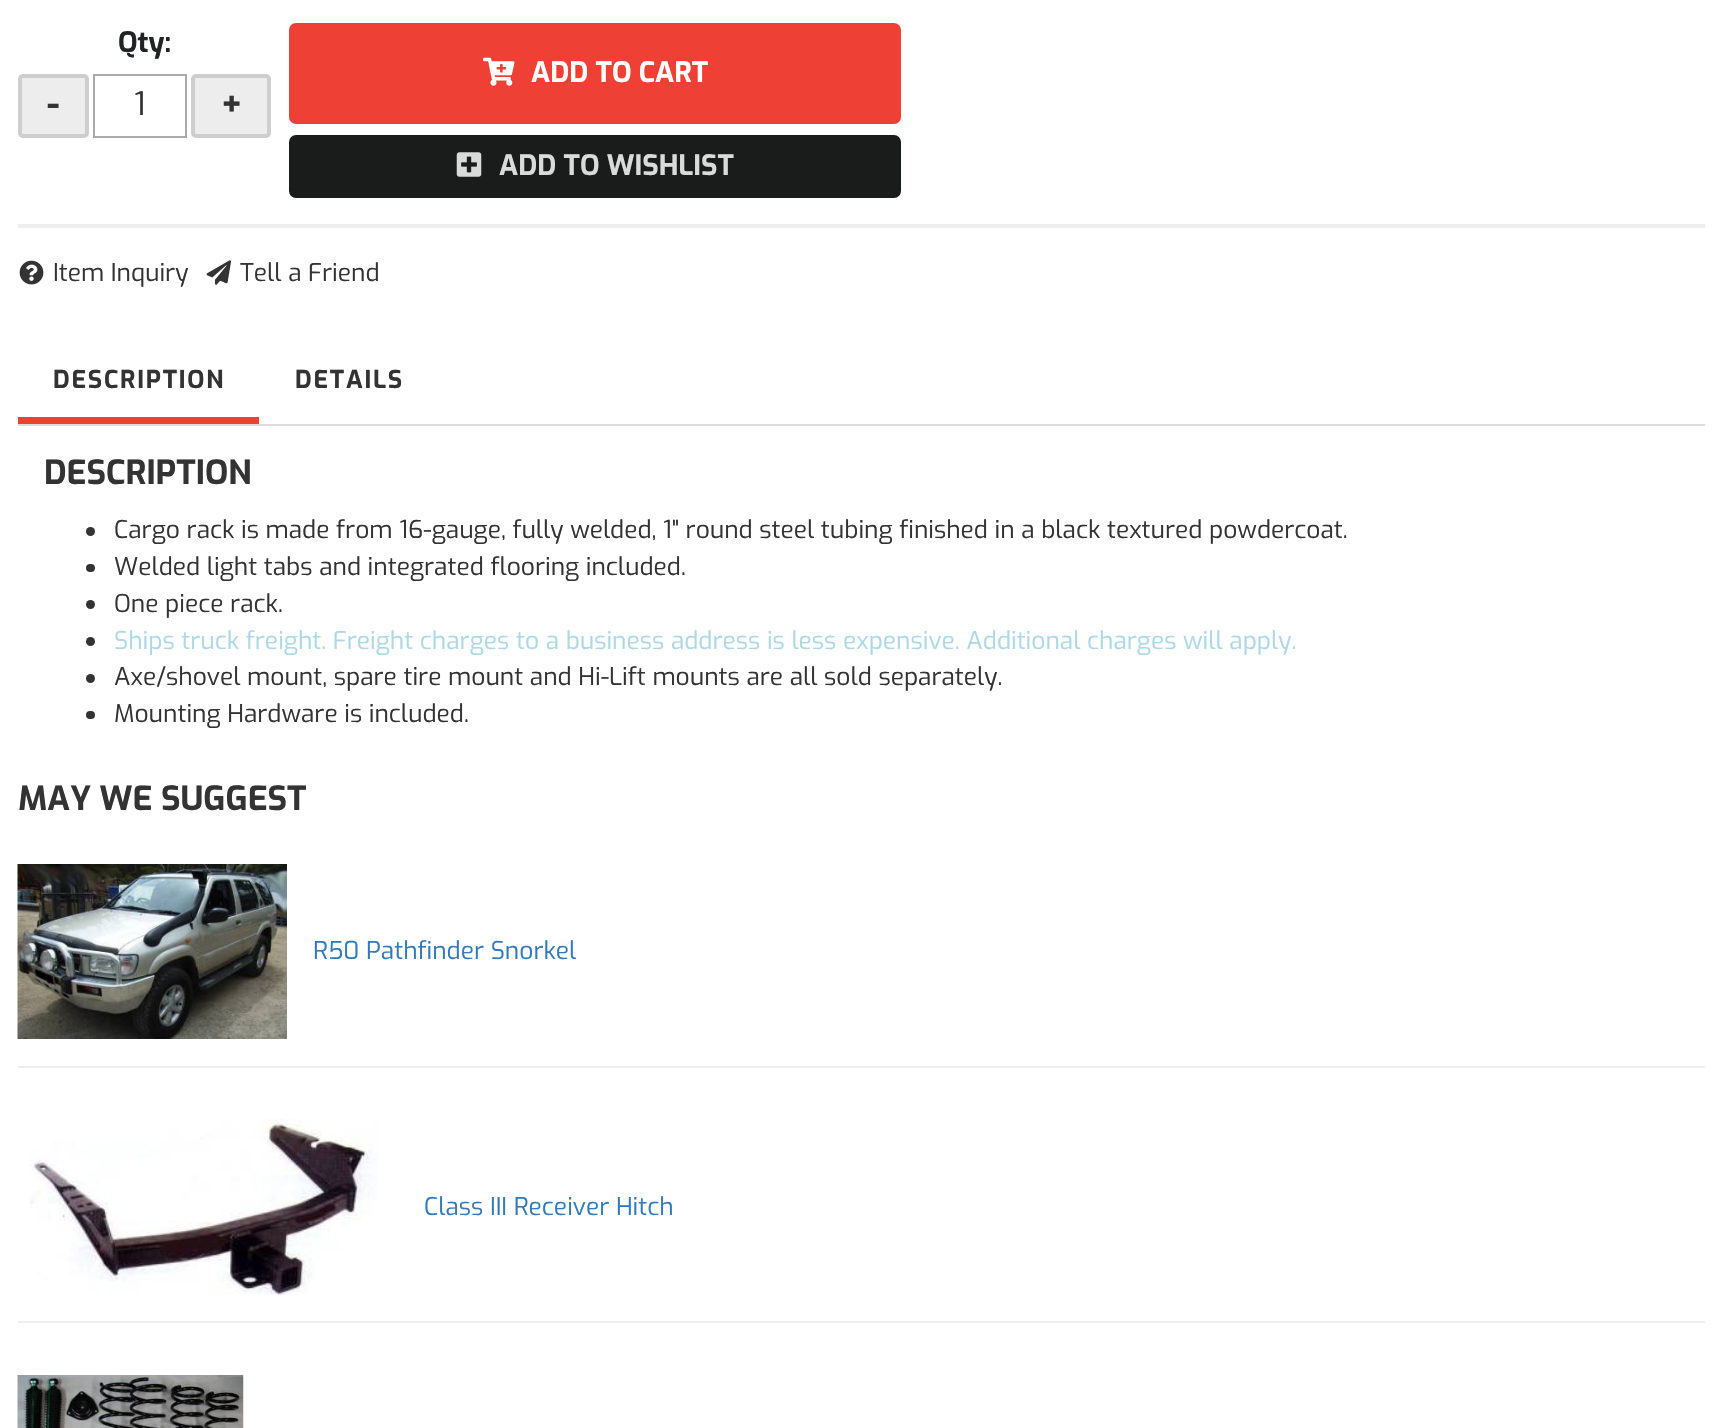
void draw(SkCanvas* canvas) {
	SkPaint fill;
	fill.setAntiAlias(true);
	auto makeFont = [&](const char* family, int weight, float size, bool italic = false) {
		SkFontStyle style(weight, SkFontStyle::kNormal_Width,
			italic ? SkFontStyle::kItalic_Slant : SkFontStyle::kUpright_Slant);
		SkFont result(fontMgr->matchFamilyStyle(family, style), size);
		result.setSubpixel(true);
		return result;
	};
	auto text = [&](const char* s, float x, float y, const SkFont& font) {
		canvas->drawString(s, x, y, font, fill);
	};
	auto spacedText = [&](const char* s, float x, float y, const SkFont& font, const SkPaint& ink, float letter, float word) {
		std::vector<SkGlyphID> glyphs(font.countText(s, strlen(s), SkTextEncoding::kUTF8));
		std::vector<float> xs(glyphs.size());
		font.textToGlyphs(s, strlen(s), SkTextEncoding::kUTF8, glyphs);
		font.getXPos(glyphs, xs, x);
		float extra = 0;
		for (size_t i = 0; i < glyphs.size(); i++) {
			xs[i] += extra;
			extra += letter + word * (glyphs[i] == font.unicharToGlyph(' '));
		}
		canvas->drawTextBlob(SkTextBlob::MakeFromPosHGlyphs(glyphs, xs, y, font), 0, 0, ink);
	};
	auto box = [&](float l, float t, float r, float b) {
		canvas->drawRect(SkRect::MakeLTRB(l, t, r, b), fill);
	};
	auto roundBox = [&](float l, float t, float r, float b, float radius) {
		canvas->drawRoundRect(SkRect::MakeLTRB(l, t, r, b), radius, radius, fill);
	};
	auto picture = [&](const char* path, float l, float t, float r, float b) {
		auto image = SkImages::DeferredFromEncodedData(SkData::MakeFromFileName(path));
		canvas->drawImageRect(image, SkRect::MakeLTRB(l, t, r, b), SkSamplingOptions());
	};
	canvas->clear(0xFFFFFFFF);
	fill.setColor(0xFFEEEEEE);
	box(18, 224, 1705, 228);
	fill.setColor(0xFFEDEDED);
	canvas->drawRoundRect(SkRect::MakeLTRB(20, 76, 87, 136), 3, 3, fill);
	fill.setStyle(SkPaint::kStroke_Style);
	fill.setStrokeWidth(4);
	fill.setColor(0xFFCECECE);
	canvas->drawRoundRect(SkRect::MakeLTRB(20, 76, 87, 136), 3, 3, fill);
	fill.setStrokeWidth(2);
	fill.setColor(0xFFAAAAAA);
	canvas->drawRect(SkRect::MakeLTRB(94, 75, 186, 137), fill);
	fill.setStyle(SkPaint::kFill_Style);
	fill.setColor(0xFFEDEDED);
	canvas->drawRoundRect(SkRect::MakeLTRB(193, 76, 269, 136), 3, 3, fill);
	fill.setStyle(SkPaint::kStroke_Style);
	fill.setStrokeWidth(4);
	fill.setColor(0xFFCECECE);
	canvas->drawRoundRect(SkRect::MakeLTRB(193, 76, 269, 136), 3, 3, fill);
	fill.setStyle(SkPaint::kFill_Style);
	fill.setColor(0xFFEF4035);
	canvas->drawRoundRect(SkRect::MakeLTRB(291, 25, 899, 122), 5, 5, fill);
	fill.setStyle(SkPaint::kStroke_Style);
	canvas->drawRoundRect(SkRect::MakeLTRB(291, 25, 899, 122), 5, 5, fill);
	picture("image0.png", 483, 57, 515, 86);
	fill.setStyle(SkPaint::kFill_Style);
	fill.setColor(0xFF1A1B1B);
	roundBox(289, 135, 901, 198, 7);
	picture("image1.png", 456, 152, 482, 177);
	picture("image2.png", 19, 260, 44, 285);
	picture("image3.png", 206, 260, 231, 285);
	fill.setColor(0xFFDDDDDD);
	box(18, 424, 1705, 426);
	fill.setColor(0xFFEF4035);
	box(18, 417, 259, 424);
	fill.setColor(0xFF333333);
	canvas->drawCircle(90.5f, 531.5f, 4.5f, fill);
	roundBox(86, 564, 95, 572, 4);
	canvas->drawCircle(90.5f, 604.5f, 4.5f, fill);
	canvas->drawCircle(90.5f, 641.5f, 4.5f, fill);
	canvas->drawCircle(90.5f, 678.5f, 4.5f, fill);
	roundBox(86, 711, 95, 719, 4);
	fill.setColor(0xFFEEEEEE);
	box(18, 1066, 1705, 1068);
	picture("image4.png", 17, 864, 287, 1039);
	box(18, 1321, 1705, 1323);
	picture("image5.png", 29, 1119, 378, 1295);
	picture("image6.png", 17, 1375, 244, 1428);
	auto font1 = makeFont("Exo", 700, 28);
	fill.setColor(0xFF222325);
	text("Qty:", 118, 52, font1);
	auto font2 = makeFont("Exo", 700, 35);
	fill.setColor(0xFF333333);
	text("-", 47, 116, font2);
	auto font3 = makeFont("Exo", 400, 32);
	text("1", 134, 115, font3);
	text("+", 221, 116, font2);
	fill.setColor(0xFFFFFFFF);
	text("ADD TO CART", 531, 82, font1);
	fill.setColor(0xFFDADADA);
	text("ADD TO WISHLIST", 499, 175, font1);
	auto font4 = makeFont("Exo", 400, 24.5f);
	fill.setColor(0xFF333333);
	text("Item Inquiry", 53, 281, font4);
	text("Tell a Friend", 240, 281, font4);
	auto font5 = makeFont("Exo", 700, 24.5f);
	spacedText("DESCRIPTION", 53, 388, font5, fill, 1.75f, 0);
	spacedText("DETAILS", 295, 388, font5, fill, 1.75f, 0);
	auto font6 = makeFont("Exo", 700, 33.25f);
	text("DESCRIPTION", 44, 484, font6);
	text("Cargo rack is made from 16-gauge, fully welded, 1\" round steel tubing finished in a black textured powdercoat.", 114, 538, font4);
	text("Welded light tabs and integrated flooring included.", 114, 575, font4);
	text("One piece rack.", 114, 612, font4);
	fill.setColor(0xFFADD8E6);
	text("Ships truck freight. Freight charges to a business address is less expensive. Additional charges will apply.", 114, 649, font4);
	fill.setColor(0xFF333333);
	text("Axe/shovel mount, spare tire mount and Hi-Lift mounts are all sold separately.", 114, 685, font4);
	text("Mounting Hardware is included.", 114, 722, font4);
	text("MAY WE SUGGEST", 18, 810, font6);
	fill.setColor(0xFF337AB7);
	text("R50 Pathfinder Snorkel", 313, 959, font4);
	text("Class III Receiver Hitch", 424, 1215, font4);
}
